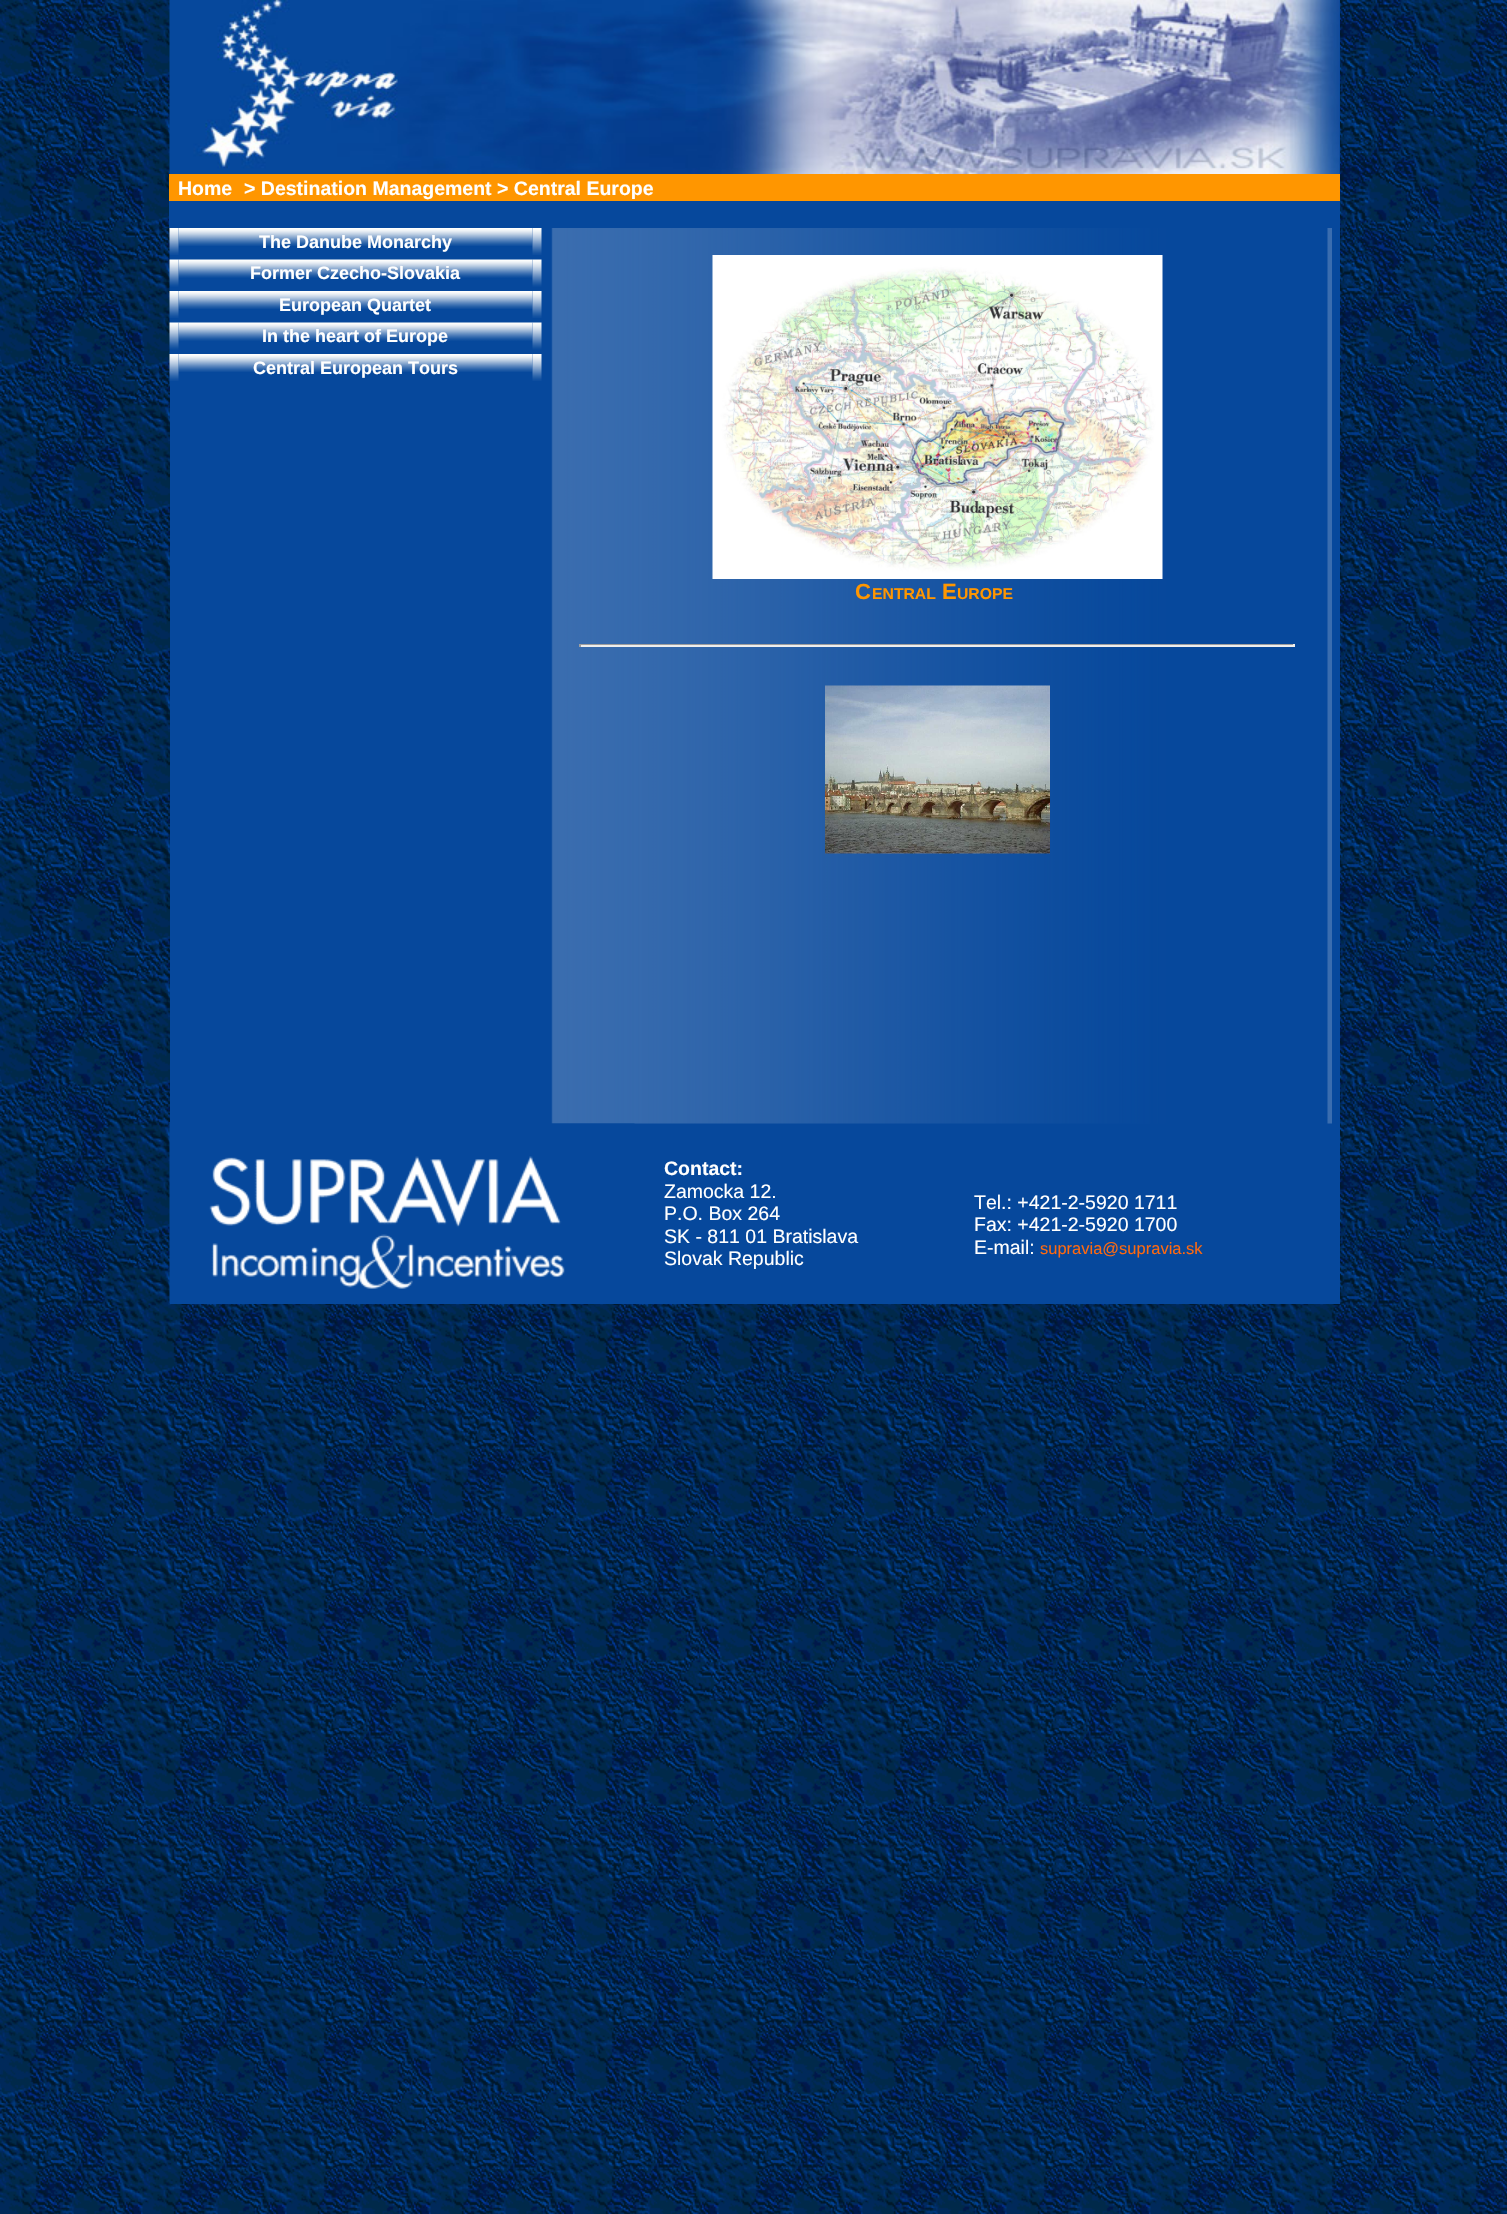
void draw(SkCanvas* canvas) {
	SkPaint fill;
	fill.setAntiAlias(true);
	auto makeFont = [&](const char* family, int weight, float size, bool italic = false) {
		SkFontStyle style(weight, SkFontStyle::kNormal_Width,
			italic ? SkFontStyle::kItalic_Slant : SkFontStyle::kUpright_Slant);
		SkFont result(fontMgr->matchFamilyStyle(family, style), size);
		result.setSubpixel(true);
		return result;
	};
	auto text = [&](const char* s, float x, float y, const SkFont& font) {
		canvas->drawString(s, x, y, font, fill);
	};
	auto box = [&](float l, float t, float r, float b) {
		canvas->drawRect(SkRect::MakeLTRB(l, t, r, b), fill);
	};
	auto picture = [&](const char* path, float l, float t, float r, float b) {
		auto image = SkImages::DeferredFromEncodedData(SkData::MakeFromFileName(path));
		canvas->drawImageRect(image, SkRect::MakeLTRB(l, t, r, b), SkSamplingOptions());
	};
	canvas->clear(0xFFFFFFFF);
	picture("image0.png", 0, 0, 1507, 2214);
	fill.setColor(0xFF06489C);
	box(1339, 0, 1340, 174);
	picture("image1.png", 169, 0, 1340, 174);
	fill.setColor(0xFFFF9600);
	box(169, 174, 1340, 201);
	fill.setColor(0xFF06489C);
	box(169, 201, 1340, 228);
	box(170, 228, 542, 986);
	picture("image3.png", 178, 228, 533, 246);
	picture("image2.png", 169, 228, 179, 255);
	box(542, 1123, 1332, 1124);
	picture("image19.png", 541, 228, 1332, 1124);
	picture("image4.png", 532, 228, 542, 255);
	picture("image5.png", 169, 255, 170, 260);
	picture("image7.png", 178, 259, 533, 278);
	picture("image6.png", 169, 259, 179, 287);
	picture("image8.png", 532, 259, 542, 287);
	picture("image9.png", 169, 286, 170, 291);
	picture("image11.png", 178, 291, 533, 309);
	picture("image10.png", 169, 291, 179, 318);
	picture("image4.png", 532, 291, 542, 318);
	picture("image12.png", 169, 318, 170, 323);
	picture("image14.png", 178, 322, 533, 341);
	picture("image13.png", 169, 322, 179, 350);
	picture("image8.png", 532, 322, 542, 350);
	picture("image15.png", 169, 349, 170, 354);
	picture("image17.png", 178, 354, 533, 372);
	picture("image16.png", 169, 354, 179, 381);
	picture("image4.png", 532, 354, 542, 381);
	picture("image18.png", 169, 381, 170, 386);
	box(1332, 228, 1340, 1124);
	picture("image20.png", 712, 255, 1163, 579);
	fill.setColor(0xFF9F9F9F);
	box(579, 644, 1295, 645);
	fill.setColor(0xFFEEEEEE);
	box(1293, 644, 1295, 647);
	box(579, 645, 1295, 647);
	fill.setColor(0xFF9F9F9F);
	box(579, 644, 581, 647);
	picture("image21.png", 825, 685, 1050, 854);
	fill.setColor(0xFF06489C);
	box(170, 986, 542, 1124);
	box(170, 1124, 1340, 1304);
	picture("image23.png", 169, 1123, 635, 1304);
	picture("image22.png", 169, 1122, 170, 1124);
	auto font1 = makeFont("Liberation Sans", 700, 19.5f);
	fill.setColor(0xFFFFFFFF);
	text("Home", 178, 195, font1);
	text("> Destination Management > Central Europe", 244, 195, font1);
	auto font2 = makeFont("Liberation Sans", 700, 18);
	text("The Danube Monarchy", 259, 248, font2);
	text("Former Czecho-Slovakia", 250, 279, font2);
	text("European Quartet", 279, 311, font2);
	text("In the heart of Europe", 262, 342, font2);
	text("Central European Tours", 253, 374, font2);
	auto font3 = makeFont("Liberation Sans", 700, 22);
	fill.setColor(0xFFFF9600);
	text("C", 855, 599, font3);
	auto font4 = makeFont("Liberation Sans", 700, 15.75f);
	text("ENTRAL", 872, 599, font4);
	text("E", 942, 599, font3);
	text("UROPE", 957, 599, font4);
	fill.setColor(0xFFFFFFFF);
	text("Contact:", 664, 1175, font1);
	auto font5 = makeFont("Liberation Sans", 400, 19.5f);
	text("Zamocka 12.", 664, 1198, font5);
	text("P.O. Box 264", 664, 1220, font5);
	text("SK - 811 01 Bratislava", 664, 1243, font5);
	text("Slovak Republic", 664, 1265, font5);
	text("Tel.: +421-2-5920 1711", 974, 1209, font5);
	text("Fax: +421-2-5920 1700", 974, 1231, font5);
	text("E-mail:", 974, 1254, font5);
	auto font6 = makeFont("Liberation Sans", 400, 16.5f);
	fill.setColor(0xFFFF690F);
	text("supravia@supravia.sk", 1040, 1254, font6);
}
